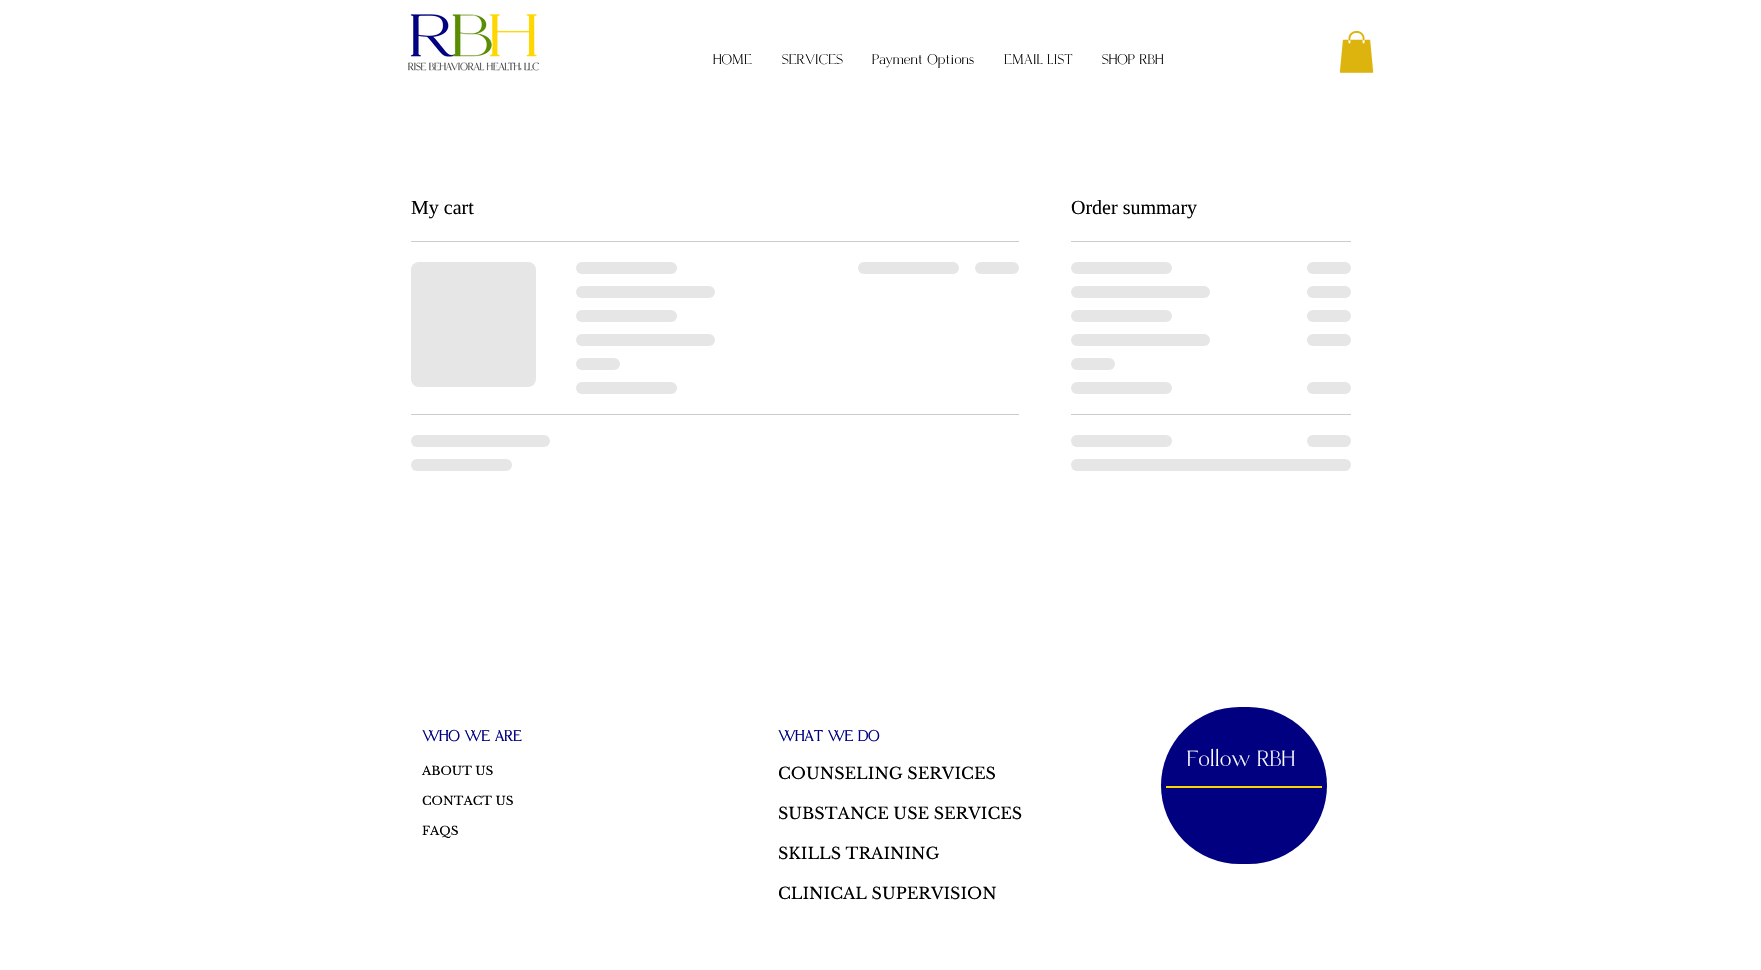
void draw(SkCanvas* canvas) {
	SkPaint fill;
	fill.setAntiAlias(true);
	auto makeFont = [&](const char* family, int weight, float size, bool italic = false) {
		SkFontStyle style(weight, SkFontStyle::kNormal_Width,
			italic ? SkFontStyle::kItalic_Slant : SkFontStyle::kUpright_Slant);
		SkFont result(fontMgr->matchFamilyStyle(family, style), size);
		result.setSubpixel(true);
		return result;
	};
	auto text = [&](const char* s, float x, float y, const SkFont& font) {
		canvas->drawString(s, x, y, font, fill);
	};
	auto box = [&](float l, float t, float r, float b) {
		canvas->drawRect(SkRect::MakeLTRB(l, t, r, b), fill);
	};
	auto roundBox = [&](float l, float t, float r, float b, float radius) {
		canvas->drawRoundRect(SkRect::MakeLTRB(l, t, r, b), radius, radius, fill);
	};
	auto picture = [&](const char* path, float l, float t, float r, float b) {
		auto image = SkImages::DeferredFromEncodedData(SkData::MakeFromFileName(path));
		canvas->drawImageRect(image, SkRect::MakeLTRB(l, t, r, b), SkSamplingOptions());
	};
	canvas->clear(0xFFFFFFFF);
	picture("image0.png", 408, 14, 539, 71);
	picture("image1.png", 1339, 31, 1374, 73);
	fill.setColor(0xFFCCCCCC);
	box(411, 241, 1019, 242);
	{
		const SkColor colors[] = {0xFFE6E6E6, 0xFFCCCCCC, 0xFFE6E6E6};
		const float stops[] = {0.25f, 0.37f, 0.63f};
		const SkPoint ends[] = {{411, 325}, {911, 325}};
		fill.setShader(SkGradientShader::MakeLinear(ends, colors, stops, 3, SkTileMode::kClamp));
		fill.setAlpha(255);
	}
	roundBox(411, 262, 536, 387, 8);
	{
		const SkColor colors[] = {0xFFE6E6E6, 0xFFCCCCCC, 0xFFE6E6E6};
		const float stops[] = {0.25f, 0.37f, 0.63f};
		const SkPoint ends[] = {{576, 268}, {980, 268}};
		fill.setShader(SkGradientShader::MakeLinear(ends, colors, stops, 3, SkTileMode::kClamp));
		fill.setAlpha(255);
	}
	roundBox(576, 262, 677, 274, 6);
	{
		const SkColor colors[] = {0xFFE6E6E6, 0xFFCCCCCC, 0xFFE6E6E6};
		const float stops[] = {0.25f, 0.37f, 0.63f};
		const SkPoint ends[] = {{576, 292}, {1132, 292}};
		fill.setShader(SkGradientShader::MakeLinear(ends, colors, stops, 3, SkTileMode::kClamp));
		fill.setAlpha(255);
	}
	roundBox(576, 286, 715, 298, 6);
	{
		const SkColor colors[] = {0xFFE6E6E6, 0xFFCCCCCC, 0xFFE6E6E6};
		const float stops[] = {0.25f, 0.37f, 0.63f};
		const SkPoint ends[] = {{576, 316}, {980, 316}};
		fill.setShader(SkGradientShader::MakeLinear(ends, colors, stops, 3, SkTileMode::kClamp));
		fill.setAlpha(255);
	}
	roundBox(576, 310, 677, 322, 6);
	{
		const SkColor colors[] = {0xFFE6E6E6, 0xFFCCCCCC, 0xFFE6E6E6};
		const float stops[] = {0.25f, 0.37f, 0.63f};
		const SkPoint ends[] = {{576, 340}, {1132, 340}};
		fill.setShader(SkGradientShader::MakeLinear(ends, colors, stops, 3, SkTileMode::kClamp));
		fill.setAlpha(255);
	}
	roundBox(576, 334, 715, 346, 6);
	{
		const SkColor colors[] = {0xFFE6E6E6, 0xFFCCCCCC, 0xFFE6E6E6};
		const float stops[] = {0.25f, 0.37f, 0.63f};
		const SkPoint ends[] = {{576, 364}, {752, 364}};
		fill.setShader(SkGradientShader::MakeLinear(ends, colors, stops, 3, SkTileMode::kClamp));
		fill.setAlpha(255);
	}
	roundBox(576, 358, 620, 370, 6);
	{
		const SkColor colors[] = {0xFFE6E6E6, 0xFFCCCCCC, 0xFFE6E6E6};
		const float stops[] = {0.25f, 0.37f, 0.63f};
		const SkPoint ends[] = {{576, 388}, {980, 388}};
		fill.setShader(SkGradientShader::MakeLinear(ends, colors, stops, 3, SkTileMode::kClamp));
		fill.setAlpha(255);
	}
	roundBox(576, 382, 677, 394, 6);
	{
		const SkColor colors[] = {0xFFE6E6E6, 0xFFCCCCCC, 0xFFE6E6E6};
		const float stops[] = {0.25f, 0.37f, 0.63f};
		const SkPoint ends[] = {{858, 268}, {1262, 268}};
		fill.setShader(SkGradientShader::MakeLinear(ends, colors, stops, 3, SkTileMode::kClamp));
		fill.setAlpha(255);
	}
	roundBox(858, 262, 959, 274, 6);
	{
		const SkColor colors[] = {0xFFE6E6E6, 0xFFCCCCCC, 0xFFE6E6E6};
		const float stops[] = {0.25f, 0.37f, 0.63f};
		const SkPoint ends[] = {{975, 268}, {1151, 268}};
		fill.setShader(SkGradientShader::MakeLinear(ends, colors, stops, 3, SkTileMode::kClamp));
		fill.setAlpha(255);
	}
	roundBox(975, 262, 1019, 274, 6);
	fill.setShader(nullptr);
	fill.setColor(0xFFCCCCCC);
	box(411, 414, 1019, 415);
	{
		const SkColor colors[] = {0xFFE6E6E6, 0xFFCCCCCC, 0xFFE6E6E6};
		const float stops[] = {0.25f, 0.37f, 0.63f};
		const SkPoint ends[] = {{411, 441}, {967, 441}};
		fill.setShader(SkGradientShader::MakeLinear(ends, colors, stops, 3, SkTileMode::kClamp));
		fill.setAlpha(255);
	}
	roundBox(411, 435, 550, 447, 6);
	{
		const SkColor colors[] = {0xFFE6E6E6, 0xFFCCCCCC, 0xFFE6E6E6};
		const float stops[] = {0.25f, 0.37f, 0.63f};
		const SkPoint ends[] = {{411, 465}, {815, 465}};
		fill.setShader(SkGradientShader::MakeLinear(ends, colors, stops, 3, SkTileMode::kClamp));
		fill.setAlpha(255);
	}
	roundBox(411, 459, 512, 471, 6);
	fill.setShader(nullptr);
	fill.setColor(0xFFCCCCCC);
	box(1071, 241, 1351, 242);
	{
		const SkColor colors[] = {0xFFE6E6E6, 0xFFCCCCCC, 0xFFE6E6E6};
		const float stops[] = {0.25f, 0.37f, 0.63f};
		const SkPoint ends[] = {{1071, 268}, {1475, 268}};
		fill.setShader(SkGradientShader::MakeLinear(ends, colors, stops, 3, SkTileMode::kClamp));
		fill.setAlpha(255);
	}
	roundBox(1071, 262, 1172, 274, 6);
	{
		const SkColor colors[] = {0xFFE6E6E6, 0xFFCCCCCC, 0xFFE6E6E6};
		const float stops[] = {0.25f, 0.37f, 0.63f};
		const SkPoint ends[] = {{1307, 268}, {1483, 268}};
		fill.setShader(SkGradientShader::MakeLinear(ends, colors, stops, 3, SkTileMode::kClamp));
		fill.setAlpha(255);
	}
	roundBox(1307, 262, 1351, 274, 6);
	{
		const SkColor colors[] = {0xFFE6E6E6, 0xFFCCCCCC, 0xFFE6E6E6};
		const float stops[] = {0.25f, 0.37f, 0.63f};
		const SkPoint ends[] = {{1071, 292}, {1627, 292}};
		fill.setShader(SkGradientShader::MakeLinear(ends, colors, stops, 3, SkTileMode::kClamp));
		fill.setAlpha(255);
	}
	roundBox(1071, 286, 1210, 298, 6);
	{
		const SkColor colors[] = {0xFFE6E6E6, 0xFFCCCCCC, 0xFFE6E6E6};
		const float stops[] = {0.25f, 0.37f, 0.63f};
		const SkPoint ends[] = {{1307, 292}, {1483, 292}};
		fill.setShader(SkGradientShader::MakeLinear(ends, colors, stops, 3, SkTileMode::kClamp));
		fill.setAlpha(255);
	}
	roundBox(1307, 286, 1351, 298, 6);
	{
		const SkColor colors[] = {0xFFE6E6E6, 0xFFCCCCCC, 0xFFE6E6E6};
		const float stops[] = {0.25f, 0.37f, 0.63f};
		const SkPoint ends[] = {{1071, 316}, {1475, 316}};
		fill.setShader(SkGradientShader::MakeLinear(ends, colors, stops, 3, SkTileMode::kClamp));
		fill.setAlpha(255);
	}
	roundBox(1071, 310, 1172, 322, 6);
	{
		const SkColor colors[] = {0xFFE6E6E6, 0xFFCCCCCC, 0xFFE6E6E6};
		const float stops[] = {0.25f, 0.37f, 0.63f};
		const SkPoint ends[] = {{1307, 316}, {1483, 316}};
		fill.setShader(SkGradientShader::MakeLinear(ends, colors, stops, 3, SkTileMode::kClamp));
		fill.setAlpha(255);
	}
	roundBox(1307, 310, 1351, 322, 6);
	{
		const SkColor colors[] = {0xFFE6E6E6, 0xFFCCCCCC, 0xFFE6E6E6};
		const float stops[] = {0.25f, 0.37f, 0.63f};
		const SkPoint ends[] = {{1071, 340}, {1627, 340}};
		fill.setShader(SkGradientShader::MakeLinear(ends, colors, stops, 3, SkTileMode::kClamp));
		fill.setAlpha(255);
	}
	roundBox(1071, 334, 1210, 346, 6);
	{
		const SkColor colors[] = {0xFFE6E6E6, 0xFFCCCCCC, 0xFFE6E6E6};
		const float stops[] = {0.25f, 0.37f, 0.63f};
		const SkPoint ends[] = {{1307, 340}, {1483, 340}};
		fill.setShader(SkGradientShader::MakeLinear(ends, colors, stops, 3, SkTileMode::kClamp));
		fill.setAlpha(255);
	}
	roundBox(1307, 334, 1351, 346, 6);
	{
		const SkColor colors[] = {0xFFE6E6E6, 0xFFCCCCCC, 0xFFE6E6E6};
		const float stops[] = {0.25f, 0.37f, 0.63f};
		const SkPoint ends[] = {{1071, 364}, {1247, 364}};
		fill.setShader(SkGradientShader::MakeLinear(ends, colors, stops, 3, SkTileMode::kClamp));
		fill.setAlpha(255);
	}
	roundBox(1071, 358, 1115, 370, 6);
	{
		const SkColor colors[] = {0xFFE6E6E6, 0xFFCCCCCC, 0xFFE6E6E6};
		const float stops[] = {0.25f, 0.37f, 0.63f};
		const SkPoint ends[] = {{1071, 388}, {1475, 388}};
		fill.setShader(SkGradientShader::MakeLinear(ends, colors, stops, 3, SkTileMode::kClamp));
		fill.setAlpha(255);
	}
	roundBox(1071, 382, 1172, 394, 6);
	{
		const SkColor colors[] = {0xFFE6E6E6, 0xFFCCCCCC, 0xFFE6E6E6};
		const float stops[] = {0.25f, 0.37f, 0.63f};
		const SkPoint ends[] = {{1307, 388}, {1483, 388}};
		fill.setShader(SkGradientShader::MakeLinear(ends, colors, stops, 3, SkTileMode::kClamp));
		fill.setAlpha(255);
	}
	roundBox(1307, 382, 1351, 394, 6);
	fill.setShader(nullptr);
	fill.setColor(0xFFCCCCCC);
	box(1071, 414, 1351, 415);
	{
		const SkColor colors[] = {0xFFE6E6E6, 0xFFCCCCCC, 0xFFE6E6E6};
		const float stops[] = {0.25f, 0.37f, 0.63f};
		const SkPoint ends[] = {{1071, 441}, {1475, 441}};
		fill.setShader(SkGradientShader::MakeLinear(ends, colors, stops, 3, SkTileMode::kClamp));
		fill.setAlpha(255);
	}
	roundBox(1071, 435, 1172, 447, 6);
	{
		const SkColor colors[] = {0xFFE6E6E6, 0xFFCCCCCC, 0xFFE6E6E6};
		const float stops[] = {0.25f, 0.37f, 0.63f};
		const SkPoint ends[] = {{1307, 441}, {1483, 441}};
		fill.setShader(SkGradientShader::MakeLinear(ends, colors, stops, 3, SkTileMode::kClamp));
		fill.setAlpha(255);
	}
	roundBox(1307, 435, 1351, 447, 6);
	{
		const SkColor colors[] = {0xFFE6E6E6, 0xFFCCCCCC, 0xFFE6E6E6};
		const float stops[] = {0.25f, 0.37f, 0.63f};
		const SkPoint ends[] = {{1071, 465}, {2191, 465}};
		fill.setShader(SkGradientShader::MakeLinear(ends, colors, stops, 3, SkTileMode::kClamp));
		fill.setAlpha(255);
	}
	roundBox(1071, 459, 1351, 471, 6);
	fill.setShader(nullptr);
	fill.setColor(0xFF000080);
	roundBox(1161, 707, 1327, 864, 78.5f);
	fill.setColor(0xFFFCD307);
	box(1166, 786, 1322, 788);
	auto font1 = makeFont("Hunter", 400, 14);
	fill.setColor(0xFF000000);
	text("HOME", 713, 64, font1);
	text("SERVICES", 782, 64, font1);
	text("Payment Options", 872, 64, font1);
	text("EMAIL LIST", 1004, 64, font1);
	text("SHOP RBH", 1102, 64, font1);
	auto font2 = makeFont("Liberation Serif", 400, 20);
	text("My cart", 411, 214, font2);
	text("Order summary", 1071, 214, font2);
	auto font3 = makeFont("Hunter", 700, 15);
	fill.setColor(0xFF000080);
	text("WHO WE ARE", 422, 741, font3);
	text("WHAT WE DO", 778, 741, font3);
	auto font4 = makeFont("Hunter", 400, 22);
	fill.setColor(0xFFFFFFFF);
	text("Follow RBH", 1187, 766, font4);
	auto font5 = makeFont("Libre Baskerville", 400, 12);
	fill.setColor(0xFF000000);
	text("ABOUT US", 422, 775, font5);
	text("CONTACT US", 422, 805, font5);
	text("FAQS", 422, 835, font5);
	auto font6 = makeFont("Libre Baskerville", 400, 16);
	text("COUNSELING SERVICES", 778, 779, font6);
	text("SUBSTANCE USE SERVICES", 778, 819, font6);
	text("SKILLS TRAINING", 778, 859, font6);
	text("CLINICAL SUPERVISION", 778, 899, font6);
}
